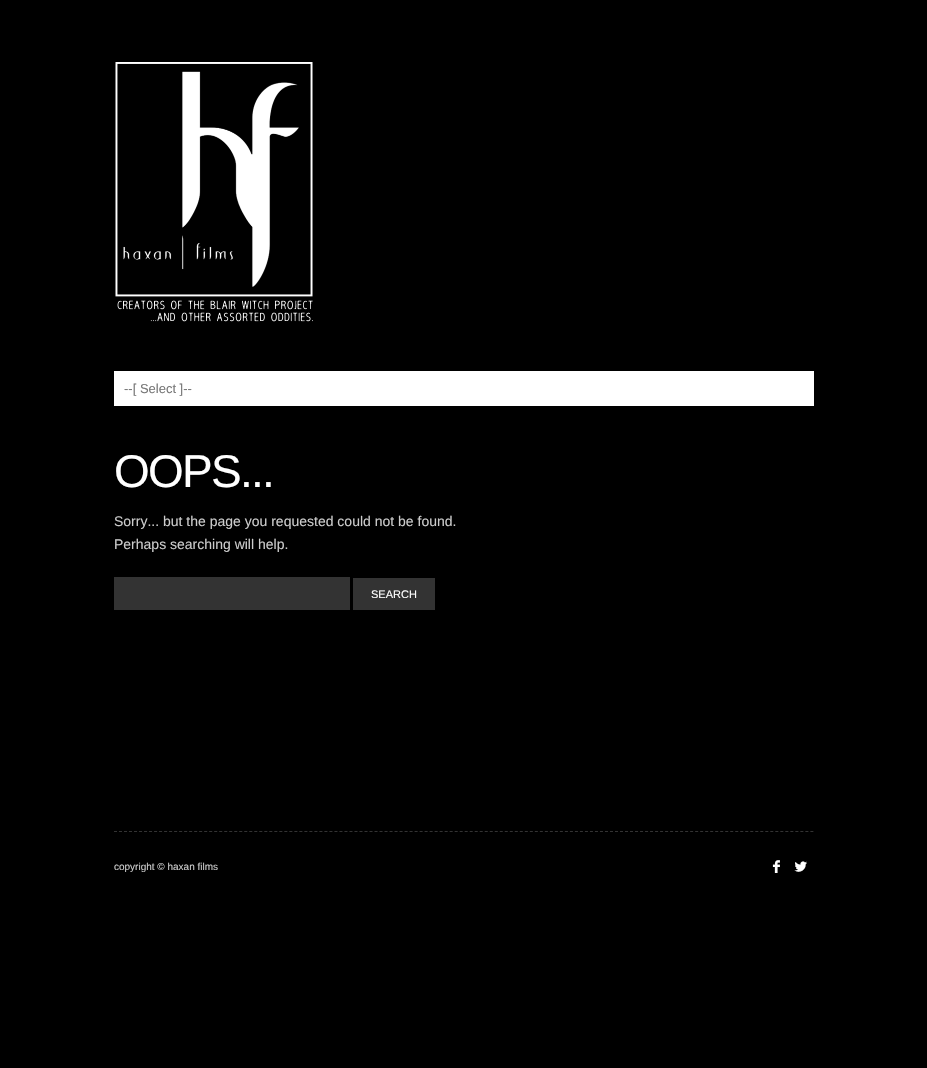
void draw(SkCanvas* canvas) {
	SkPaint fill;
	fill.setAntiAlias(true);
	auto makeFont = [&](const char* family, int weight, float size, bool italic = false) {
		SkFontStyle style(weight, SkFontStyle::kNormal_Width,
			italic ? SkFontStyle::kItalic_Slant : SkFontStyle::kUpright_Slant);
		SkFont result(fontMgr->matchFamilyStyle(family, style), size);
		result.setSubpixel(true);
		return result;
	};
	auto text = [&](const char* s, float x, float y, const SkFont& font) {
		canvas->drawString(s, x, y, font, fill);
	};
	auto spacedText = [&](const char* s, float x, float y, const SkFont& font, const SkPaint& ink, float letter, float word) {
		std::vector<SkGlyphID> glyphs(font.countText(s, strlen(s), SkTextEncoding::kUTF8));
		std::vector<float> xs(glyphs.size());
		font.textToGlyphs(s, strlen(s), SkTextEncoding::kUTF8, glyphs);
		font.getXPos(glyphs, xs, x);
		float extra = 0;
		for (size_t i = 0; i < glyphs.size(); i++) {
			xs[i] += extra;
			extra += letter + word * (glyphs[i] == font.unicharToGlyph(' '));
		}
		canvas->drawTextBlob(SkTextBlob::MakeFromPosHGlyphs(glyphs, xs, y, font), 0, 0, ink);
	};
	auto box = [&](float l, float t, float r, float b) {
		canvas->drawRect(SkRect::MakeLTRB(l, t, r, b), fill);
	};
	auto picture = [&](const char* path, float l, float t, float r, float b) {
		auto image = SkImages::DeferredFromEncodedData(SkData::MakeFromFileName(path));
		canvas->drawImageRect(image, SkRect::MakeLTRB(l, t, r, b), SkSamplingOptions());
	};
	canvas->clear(0xFF000000);
	picture("image0.png", 115, 62, 313, 322);
	fill.setColor(0xFFFFFFFF);
	box(114, 371, 814, 406);
	fill.setColor(0xFF333333);
	box(114, 577, 350, 610);
	box(353, 578, 435, 610);
	fill.setStyle(SkPaint::kStroke_Style);
	fill.setStrokeWidth(1);
	fill.setPathEffect(SkDashPathEffect::Make({{3, 2.01f}}, 0));
	canvas->drawPath(SkPathBuilder().moveTo(114, 831.5f).lineTo(814, 831.5f).detach(), fill);
	fill.setPathEffect(nullptr);
	auto font1 = makeFont("Liberation Sans", 400, 13);
	fill.setStyle(SkPaint::kFill_Style);
	fill.setColor(0xFF777777);
	text("--[ Select ]--", 124, 393, font1);
	auto font2 = makeFont("Liberation Sans", 400, 46);
	fill.setColor(0xFFFFFFFF);
	spacedText("OOPS...", 114, 487, font2, fill, -1.75f, 0);
	auto font3 = makeFont("Liberation Sans", 400, 14);
	fill.setColor(0xFFCCCCCC);
	text("Sorry... but the page you requested could not be found.", 114, 526, font3);
	text("Perhaps searching will help.", 114, 549, font3);
	auto font4 = makeFont("Liberation Sans", 400, 11);
	fill.setColor(0xFFFFFFFF);
	text("SEARCH", 371, 598, font4);
	auto font5 = makeFont("Liberation Sans", 400, 10);
	fill.setColor(0xFFCCCCCC);
	text("copyright © haxan films", 114, 870, font5);
	auto font6 = makeFont("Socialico", 400, 21);
	fill.setColor(0xFFFFFFFF);
	text("F", 772, 874, font6);
	text("L", 792, 874, font6);
}
